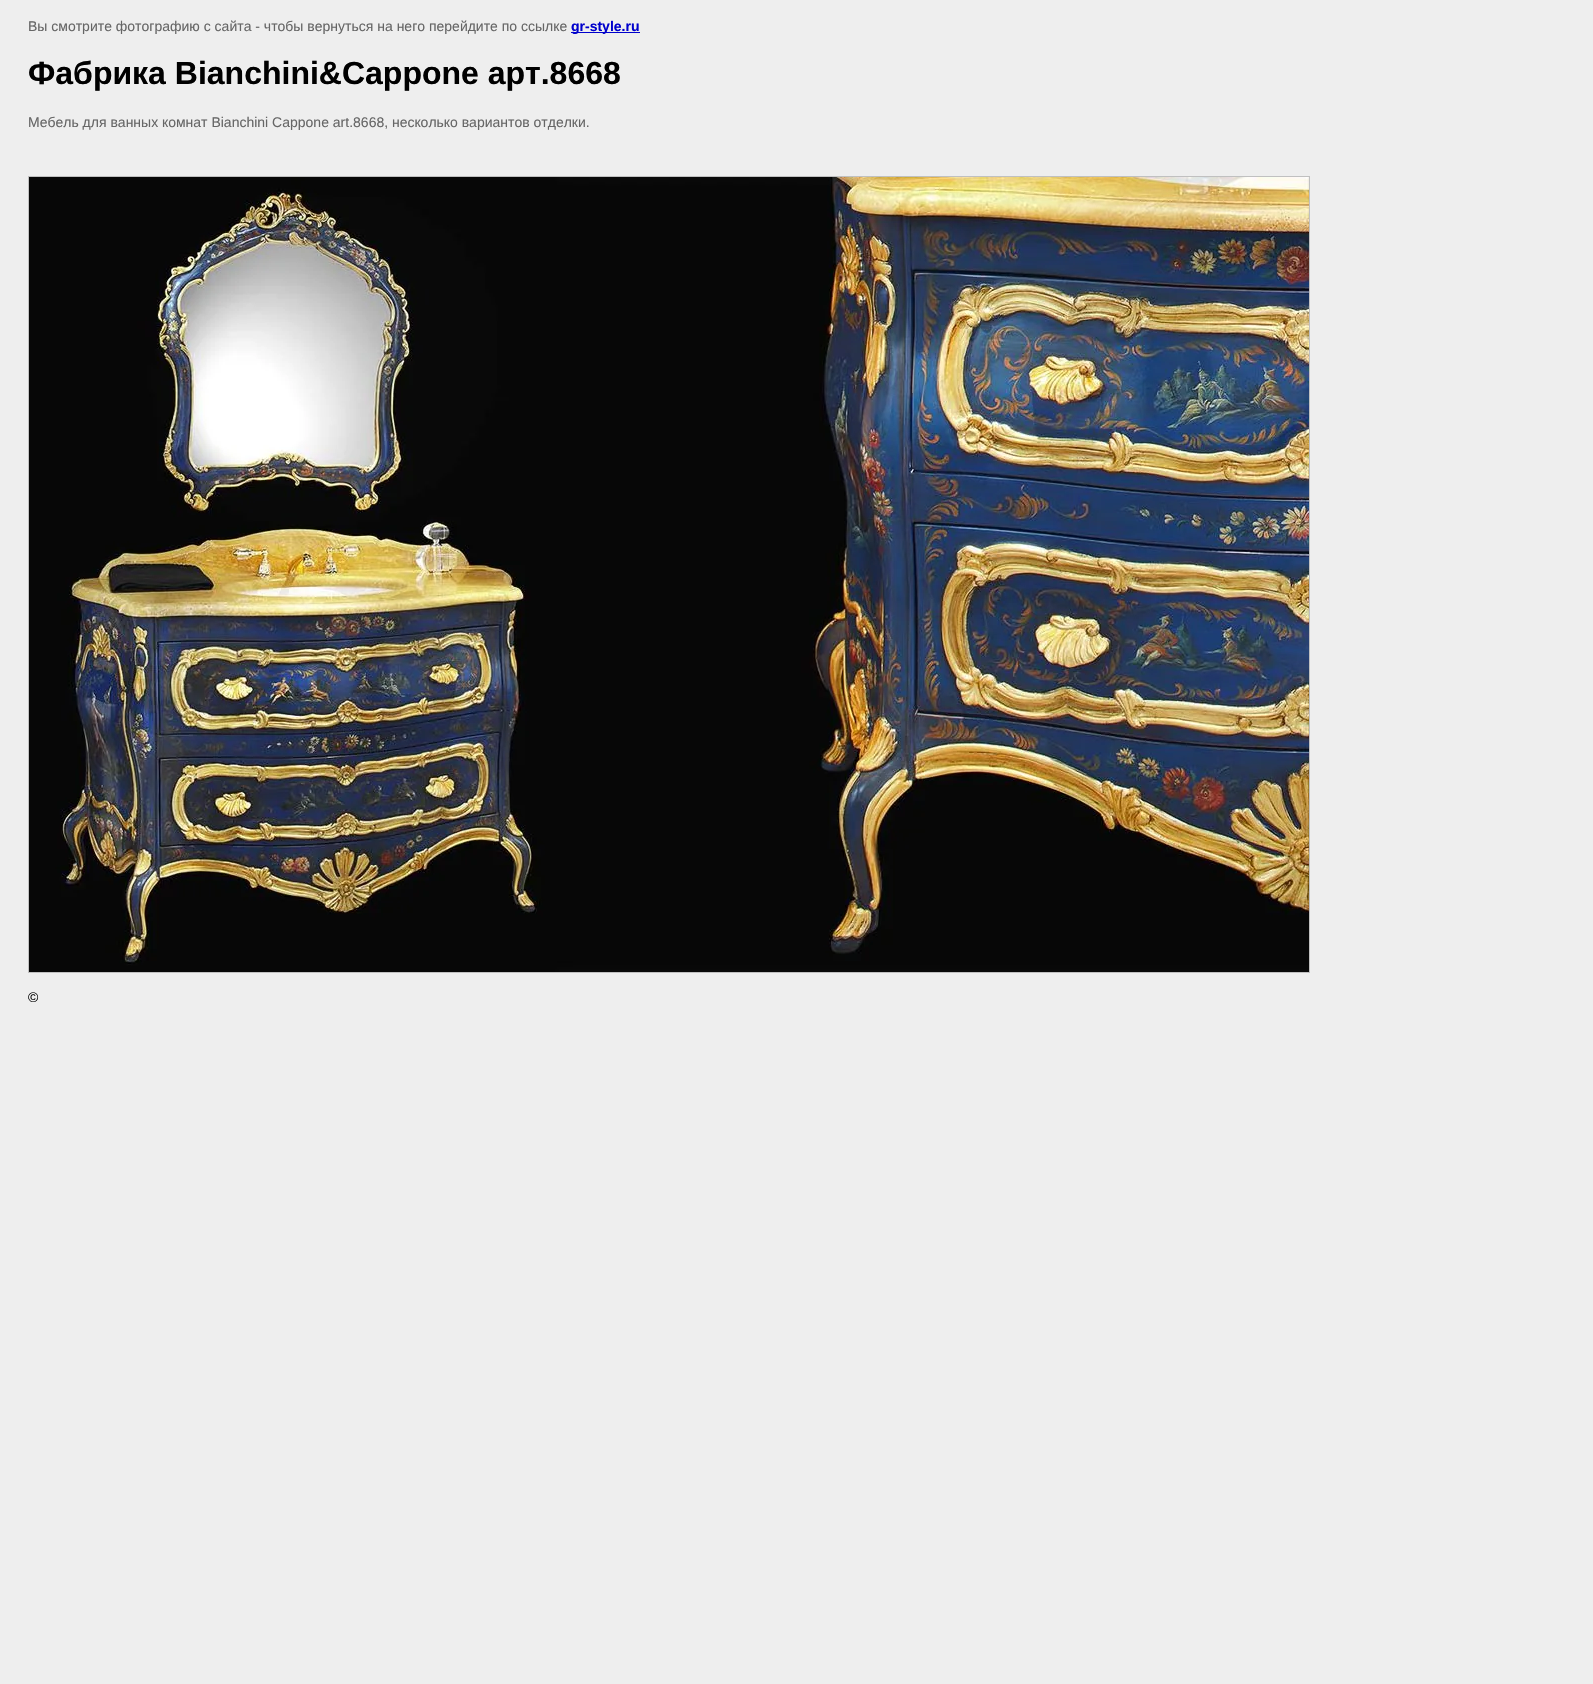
void draw(SkCanvas* canvas) {
	SkPaint fill;
	fill.setAntiAlias(true);
	auto makeFont = [&](const char* family, int weight, float size, bool italic = false) {
		SkFontStyle style(weight, SkFontStyle::kNormal_Width,
			italic ? SkFontStyle::kItalic_Slant : SkFontStyle::kUpright_Slant);
		SkFont result(fontMgr->matchFamilyStyle(family, style), size);
		result.setSubpixel(true);
		return result;
	};
	auto text = [&](const char* s, float x, float y, const SkFont& font) {
		canvas->drawString(s, x, y, font, fill);
	};
	auto box = [&](float l, float t, float r, float b) {
		canvas->drawRect(SkRect::MakeLTRB(l, t, r, b), fill);
	};
	auto picture = [&](const char* path, float l, float t, float r, float b) {
		auto image = SkImages::DeferredFromEncodedData(SkData::MakeFromFileName(path));
		canvas->drawImageRect(image, SkRect::MakeLTRB(l, t, r, b), SkSamplingOptions());
	};
	canvas->clear(0xFFEEEEEE);
	fill.setColor(0xFF0000CC);
	box(571, 32, 640, 33);
	fill.setStyle(SkPaint::kStroke_Style);
	fill.setStrokeWidth(1);
	fill.setColor(0xFFC0C0C0);
	canvas->drawRect(SkRect::MakeLTRB(28.5f, 176.5f, 1309.5f, 972.5f), fill);
	picture("image0.png", 29, 177, 1309, 972);
	auto font1 = makeFont("Liberation Sans", 400, 14);
	fill.setStyle(SkPaint::kFill_Style);
	fill.setColor(0xFF666666);
	text("Вы смотрите фотографию с сайта - чтобы вернуться на него перейдите по ссылке", 28, 31, font1);
	auto font2 = makeFont("Liberation Sans", 700, 14);
	fill.setColor(0xFF0000CC);
	text("gr-style.ru", 571, 31, font2);
	auto font3 = makeFont("Liberation Sans", 700, 32);
	fill.setColor(0xFF000000);
	text("Фабрика Bianchini&Cappone арт.8668", 28, 84, font3);
	fill.setColor(0xFF666666);
	text("Мебель для ванных комнат Bianchini Cappone art.8668, несколько вариантов отделки.", 28, 127, font1);
	fill.setColor(0xFF000000);
	text("©", 28, 1002, font1);
}
